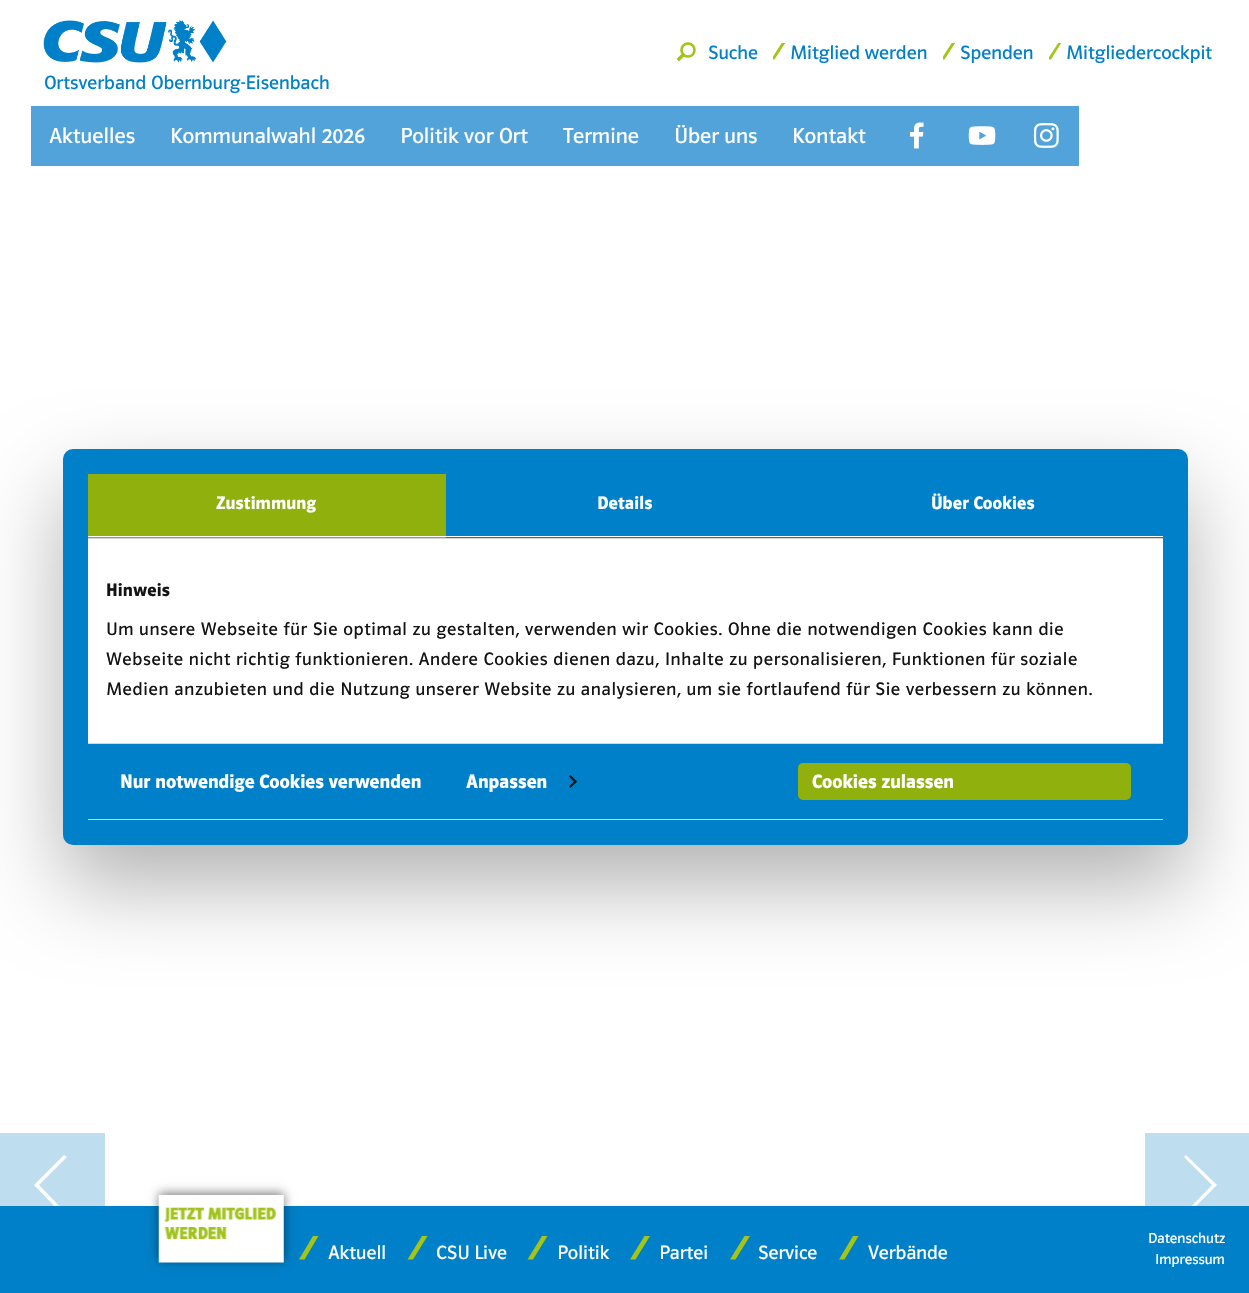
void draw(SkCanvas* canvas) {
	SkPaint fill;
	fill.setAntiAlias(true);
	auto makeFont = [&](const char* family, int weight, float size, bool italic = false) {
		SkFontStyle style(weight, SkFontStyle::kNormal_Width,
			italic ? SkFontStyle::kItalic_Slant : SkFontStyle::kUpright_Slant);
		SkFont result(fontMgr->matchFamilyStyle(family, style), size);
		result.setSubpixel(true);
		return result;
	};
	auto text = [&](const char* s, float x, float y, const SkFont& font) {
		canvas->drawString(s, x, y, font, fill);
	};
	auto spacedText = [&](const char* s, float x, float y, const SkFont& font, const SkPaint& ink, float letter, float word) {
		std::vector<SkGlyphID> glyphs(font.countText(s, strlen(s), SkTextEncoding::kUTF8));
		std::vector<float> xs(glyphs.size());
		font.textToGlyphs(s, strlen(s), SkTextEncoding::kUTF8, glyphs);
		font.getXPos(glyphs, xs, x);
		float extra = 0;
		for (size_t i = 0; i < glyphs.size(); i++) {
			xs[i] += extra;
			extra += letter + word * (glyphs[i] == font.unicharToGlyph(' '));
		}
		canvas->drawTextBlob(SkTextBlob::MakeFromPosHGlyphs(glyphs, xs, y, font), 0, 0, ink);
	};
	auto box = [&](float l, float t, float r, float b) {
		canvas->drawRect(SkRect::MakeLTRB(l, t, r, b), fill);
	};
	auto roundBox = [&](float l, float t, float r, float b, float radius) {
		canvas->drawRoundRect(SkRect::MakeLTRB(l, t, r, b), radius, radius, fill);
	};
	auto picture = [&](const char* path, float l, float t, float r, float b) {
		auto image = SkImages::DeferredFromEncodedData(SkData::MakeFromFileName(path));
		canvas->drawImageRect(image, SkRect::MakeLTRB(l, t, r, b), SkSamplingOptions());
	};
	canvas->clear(0xFFFFFFFF);
	fill.setStyle(SkPaint::kStroke_Style);
	fill.setStrokeWidth(2.6f);
	fill.setColor(0xFFA2C516);
	canvas->drawCircle(688, 50, 6.5f, fill);
	fill.setStyle(SkPaint::kFill_Style);
	canvas->drawPath(SkPathBuilder(SkPathFillType::kEvenOdd).moveTo(683, 52.5f).lineTo(685.5f, 55).lineTo(679, 61.5f).lineTo(676.5f, 59).close().detach(), fill);
	canvas->save();
	canvas->clipRect(SkRect::MakeLTRB(773, 43, 785, 60));
	canvas->drawPath(SkPathBuilder(SkPathFillType::kEvenOdd).moveTo(782, 42.5f).lineTo(785.5f, 42.5f).lineTo(774.5f, 59.5f).lineTo(771, 59.5f).close().detach(), fill);
	canvas->restore();
	canvas->save();
	canvas->clipRect(SkRect::MakeLTRB(943, 43, 955, 60));
	canvas->drawPath(SkPathBuilder(SkPathFillType::kEvenOdd).moveTo(952, 42.5f).lineTo(955.5f, 42.5f).lineTo(944.5f, 59.5f).lineTo(941, 59.5f).close().detach(), fill);
	canvas->restore();
	canvas->save();
	canvas->clipRect(SkRect::MakeLTRB(1049, 43, 1061, 60));
	canvas->drawPath(SkPathBuilder(SkPathFillType::kEvenOdd).moveTo(1058.5f, 42.5f).lineTo(1061.5f, 42.5f).lineTo(1051, 59.5f).lineTo(1047.5f, 59.5f).close().detach(), fill);
	canvas->restore();
	fill.setColor(0xFF51A3DA);
	box(31, 106, 1079, 166);
	picture("image0.png", 910, 122, 924, 149);
	picture("image1.png", 968, 126, 996, 145);
	picture("image2.png", 1033, 123, 1059, 148);
	fill.setColor(0xFFBEDDEE);
	box(0, 1133, 105, 1206);
	fill.setColor(0xFFFFFFFF);
	canvas->drawPath(SkPathBuilder(SkPathFillType::kEvenOdd).moveTo(64, 1155).lineTo(67, 1157).lineTo(39, 1185).lineTo(67, 1214).lineTo(64, 1216).lineTo(34, 1185).close().detach(), fill);
	fill.setColor(0xFFBEDDEE);
	box(1145, 1133, 1249, 1206);
	fill.setColor(0xFFFFFFFF);
	canvas->drawPath(SkPathBuilder(SkPathFillType::kEvenOdd).moveTo(1186, 1155).lineTo(1184, 1157).lineTo(1212, 1185).lineTo(1184, 1214).lineTo(1186, 1216).lineTo(1217, 1185).close().detach(), fill);
	fill.setColor(0xFF0080C8);
	box(0, 1206, 1249, 1293);
	fill.setColor(0x80000000);
	fill.setMaskFilter(SkMaskFilter::MakeBlur(kNormal_SkBlurStyle, 5));
	canvas->drawRect(SkRect::MakeLTRB(159, 1193, 284, 1260), fill);
	fill.setMaskFilter(nullptr);
	picture("image3.png", 158, 1195, 284, 1263);
	fill.setColor(0xFFA2C516);
	canvas->drawPath(SkPathBuilder(SkPathFillType::kEvenOdd).moveTo(313, 1236).lineTo(318.5f, 1236).lineTo(304.5f, 1259.5f).lineTo(299, 1259.5f).close().detach(), fill);
	canvas->drawPath(SkPathBuilder(SkPathFillType::kEvenOdd).moveTo(422, 1236).lineTo(427.5f, 1236).lineTo(413, 1259.5f).lineTo(407.5f, 1259.5f).close().detach(), fill);
	canvas->drawPath(SkPathBuilder(SkPathFillType::kEvenOdd).moveTo(542, 1236).lineTo(547.5f, 1236).lineTo(533, 1259.5f).lineTo(527.5f, 1259.5f).close().detach(), fill);
	canvas->drawPath(SkPathBuilder(SkPathFillType::kEvenOdd).moveTo(644.5f, 1236).lineTo(650, 1236).lineTo(635.5f, 1259.5f).lineTo(630, 1259.5f).close().detach(), fill);
	canvas->drawPath(SkPathBuilder(SkPathFillType::kEvenOdd).moveTo(744.5f, 1236).lineTo(750, 1236).lineTo(735.5f, 1259.5f).lineTo(730, 1259.5f).close().detach(), fill);
	canvas->drawPath(SkPathBuilder(SkPathFillType::kEvenOdd).moveTo(853, 1236).lineTo(858.5f, 1236).lineTo(844.5f, 1259.5f).lineTo(839, 1259.5f).close().detach(), fill);
	picture("image4.png", 43, 20, 227, 63);
	fill.setColor(0x4D000000);
	fill.setMaskFilter(SkMaskFilter::MakeBlur(kNormal_SkBlurStyle, 42.5f));
	canvas->drawRoundRect(SkRect::MakeLTRB(63, 489, 1188, 885), 10, 10, fill);
	fill.setMaskFilter(nullptr);
	fill.setColor(0xFF0080C8);
	roundBox(63, 449, 1188, 845, 10);
	fill.setColor(0xFFD6D6D6);
	box(88, 538, 1163, 539);
	fill.setColor(0xFF90B00E);
	box(88, 474, 446, 538);
	fill.setColor(0xFFFFFFFF);
	box(88, 536, 1163, 537);
	box(88, 539, 1163, 743);
	fill.setColor(0xFFD6D6D6);
	box(88, 743, 1163, 744);
	box(88, 819, 1163, 820);
	fill.setColor(0xFF141414);
	canvas->drawPath(SkPathBuilder().moveTo(570.5f, 775).lineTo(577, 781.5f).lineTo(575.5f, 783.5f).lineTo(569, 776.5f).close().detach(), fill);
	canvas->drawPath(SkPathBuilder().moveTo(575.5f, 780).lineTo(577, 781.5f).lineTo(570.5f, 788).lineTo(569, 786.5f).close().detach(), fill);
	fill.setColor(0xFF90B00E);
	roundBox(798, 763, 1131, 800, 5);
	auto font1 = makeFont("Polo", 400, 20);
	fill.setColor(0xFF0080C8);
	text("Suche", 708, 59, font1);
	text("Mitglied werden", 790, 59, font1);
	text("Spenden", 960, 59, font1);
	text("Mitgliedercockpit", 1066, 59, font1);
	auto font2 = makeFont("Polo", 400, 22.5f);
	fill.setColor(0xFFFFFFFF);
	text("Aktuelles", 49, 143, font2);
	text("Kommunalwahl 2026", 170, 143, font2);
	text("Politik vor Ort", 400, 143, font2);
	text("Termine", 563, 143, font2);
	text("Über uns", 674, 143, font2);
	text("Kontakt", 792, 143, font2);
	text("Aktuell", 328, 1259, font1);
	text("CSU L ve", 436, 1259, font1);
	text("i", 483, 1259, font1);
	text("Politik", 557, 1259, font1);
	text("Partei", 659, 1259, font1);
	text("Service", 758, 1259, font1);
	text("Verbände", 868, 1259, font1);
	auto font3 = makeFont("Polo", 400, 15);
	text("Datenschutz", 1148, 1243, font3);
	text("Impressum", 1155, 1264, font3);
	fill.setColor(0xFF0080C8);
	text("Ortsverband Obernburg-Eisenbach", 44, 89, font1);
	auto font4 = makeFont("Polo", 700, 18.75f);
	fill.setColor(0xFFFFFFFF);
	spacedText("Zustimmung", 216, 509, font4, fill, 0.1f, 0);
	spacedText("Details", 597, 509, font4, fill, 0.1f, 0);
	spacedText("Über Cookies", 931, 509, font4, fill, 0.1f, 0);
	fill.setColor(0xFF141414);
	spacedText("Hinweis", 106, 596, font4, fill, 0.25f, 0);
	auto font5 = makeFont("Polo", 400, 18.75f);
	spacedText("Um unsere Webseite für Sie optimal zu gestalten, verwenden wir Cookies. Ohne die notwendigen Cookies kann die", 106, 635, font5, fill, 0.62f, 0);
	spacedText("Webseite nicht richtig funktionieren. Andere Cookies dienen dazu, Inhalte zu personalisieren, Funktionen für soziale", 106, 665, font5, fill, 0.62f, 0);
	spacedText("Medien anzubieten und die Nutzung unserer Website zu analysieren, um sie fortlaufend für Sie verbessern zu können.", 106, 695, font5, fill, 0.62f, 0);
	auto font6 = makeFont("Polo", 700, 20);
	fill.setColor(0xFFFFFFFF);
	text("Nur notwendige Cookies verwenden", 120, 788, font6);
	text("Anpassen", 466, 788, font6);
	text("Cookies zulassen", 812, 788, font6);
}
